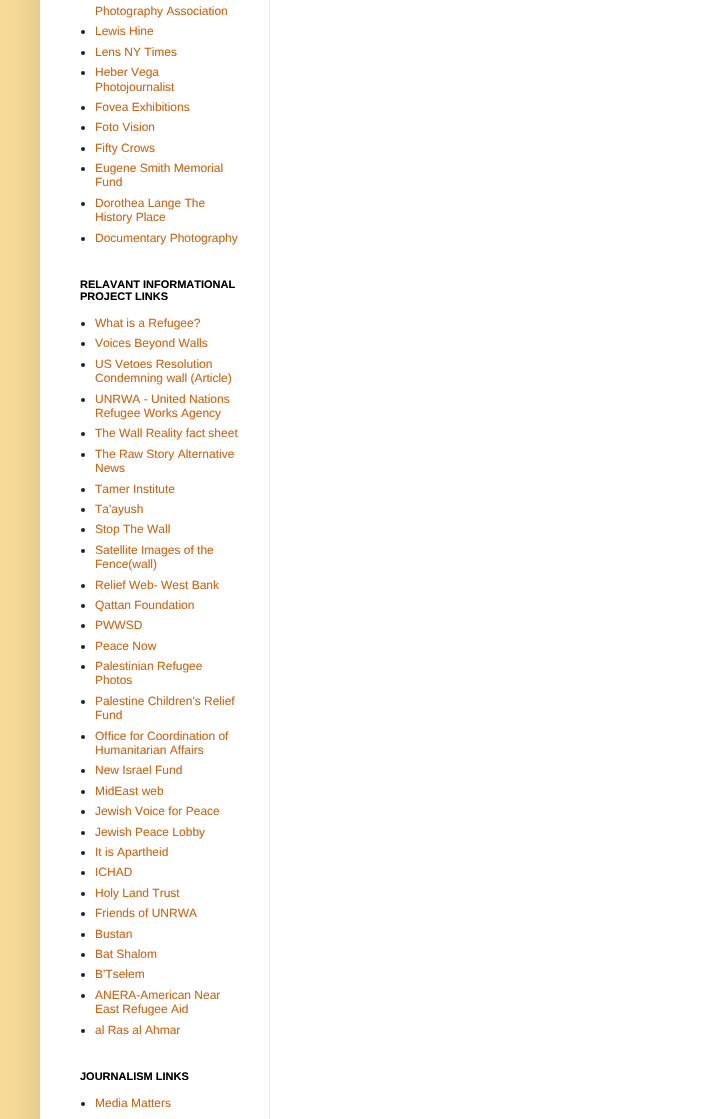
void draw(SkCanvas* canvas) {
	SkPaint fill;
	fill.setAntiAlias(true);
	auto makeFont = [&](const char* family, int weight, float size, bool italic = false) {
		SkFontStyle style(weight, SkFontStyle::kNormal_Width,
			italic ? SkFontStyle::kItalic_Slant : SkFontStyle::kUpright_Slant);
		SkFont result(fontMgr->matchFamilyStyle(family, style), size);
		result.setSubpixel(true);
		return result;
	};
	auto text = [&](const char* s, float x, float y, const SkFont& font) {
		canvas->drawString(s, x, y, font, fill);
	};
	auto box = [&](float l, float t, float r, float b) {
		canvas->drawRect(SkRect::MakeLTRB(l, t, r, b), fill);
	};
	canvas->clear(0xFFF9DC99);
	fill.setColor(0x26000000);
	fill.setMaskFilter(SkMaskFilter::MakeBlur(kNormal_SkBlurStyle, 20));
	canvas->drawRect(SkRect::MakeLTRB(40, -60, 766, 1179), fill);
	fill.setMaskFilter(nullptr);
	fill.setColor(0xFFFFFFFF);
	box(40, 0, 706, 1119);
	fill.setColor(0xFF222222);
	canvas->drawCircle(83, 32, 2, fill);
	canvas->drawCircle(83, 53, 2, fill);
	canvas->drawCircle(83, 73, 2, fill);
	canvas->drawCircle(83, 108, 2, fill);
	canvas->drawCircle(83, 128, 2, fill);
	canvas->drawCircle(83, 149, 2, fill);
	canvas->drawCircle(83, 169, 2, fill);
	canvas->drawCircle(83, 204, 2, fill);
	canvas->drawCircle(83, 239, 2, fill);
	canvas->drawCircle(83, 324, 2, fill);
	canvas->drawCircle(83, 344, 2, fill);
	canvas->drawCircle(83, 365, 2, fill);
	canvas->drawCircle(83, 400, 2, fill);
	canvas->drawCircle(83, 434, 2, fill);
	canvas->drawCircle(83, 455, 2, fill);
	canvas->drawCircle(83, 490, 2, fill);
	canvas->drawCircle(83, 510, 2, fill);
	canvas->drawCircle(83, 530, 2, fill);
	canvas->drawCircle(83, 551, 2, fill);
	canvas->drawCircle(83, 586, 2, fill);
	canvas->drawCircle(83, 606, 2, fill);
	canvas->drawCircle(83, 626, 2, fill);
	canvas->drawCircle(83, 647, 2, fill);
	canvas->drawCircle(83, 667, 2, fill);
	canvas->drawCircle(83, 702, 2, fill);
	canvas->drawCircle(83, 737, 2, fill);
	canvas->drawCircle(83, 771, 2, fill);
	canvas->drawCircle(83, 792, 2, fill);
	canvas->drawCircle(83, 812, 2, fill);
	canvas->drawCircle(83, 833, 2, fill);
	canvas->drawCircle(83, 853, 2, fill);
	canvas->drawCircle(83, 873, 2, fill);
	canvas->drawCircle(83, 894, 2, fill);
	canvas->drawCircle(83, 914, 2, fill);
	canvas->drawCircle(83, 935, 2, fill);
	canvas->drawCircle(83, 955, 2, fill);
	canvas->drawCircle(83, 975, 2, fill);
	canvas->drawCircle(83, 996, 2, fill);
	canvas->drawCircle(83, 1031, 2, fill);
	canvas->drawCircle(83, 1104, 2, fill);
	fill.setColor(0xFFEEEEEE);
	box(269, 0, 270, 1119);
	auto font1 = makeFont("Liberation Sans", 400, 12);
	fill.setColor(0xFFCC6611);
	text("Photography Association", 95, 15, font1);
	text("Lewis Hine", 95, 35, font1);
	text("Lens NY Times", 95, 56, font1);
	text("Heber Vega", 95, 76, font1);
	text("Photojournalist", 95, 91, font1);
	text("Fovea Exhibitions", 95, 111, font1);
	text("Foto Vision", 95, 131, font1);
	text("Fifty Crows", 95, 152, font1);
	text("Eugene Smith Memorial", 95, 172, font1);
	text("Fund", 95, 186, font1);
	text("Dorothea Lange The", 95, 207, font1);
	text("History Place", 95, 221, font1);
	text("Documentary Photography", 95, 242, font1);
	auto font2 = makeFont("Liberation Sans", 700, 11);
	fill.setColor(0xFF000000);
	text("RELAVANT INFORMATIONAL", 80, 288, font2);
	text("PROJECT LINKS", 80, 300, font2);
	fill.setColor(0xFFCC6611);
	text("What is a Refugee?", 95, 327, font1);
	text("Voices Beyond Walls", 95, 347, font1);
	text("US Vetoes Resolution", 95, 368, font1);
	text("Condemning wall (Article)", 95, 382, font1);
	text("UNRWA - United Nations", 95, 403, font1);
	text("Refugee Works Agency", 95, 417, font1);
	text("The Wall Reality fact sheet", 95, 437, font1);
	text("The Raw Story Alternative", 95, 458, font1);
	text("News", 95, 472, font1);
	text("Tamer Institute", 95, 493, font1);
	text("Ta'ayush", 95, 513, font1);
	text("Stop The Wall", 95, 533, font1);
	text("Satellite Images of the", 95, 554, font1);
	text("Fence(wall)", 95, 568, font1);
	text("Relief Web- West Bank", 95, 589, font1);
	text("Qattan Foundation", 95, 609, font1);
	text("PWWSD", 95, 629, font1);
	text("Peace Now", 95, 650, font1);
	text("Palestinian Refugee", 95, 670, font1);
	text("Photos", 95, 684, font1);
	text("Palestine Children's Relief", 95, 705, font1);
	text("Fund", 95, 719, font1);
	text("Office for Coordination of", 95, 740, font1);
	text("Humanitarian Affairs", 95, 754, font1);
	text("New Israel Fund", 95, 774, font1);
	text("MidEast web", 95, 795, font1);
	text("Jewish Voice for Peace", 95, 815, font1);
	text("Jewish Peace Lobby", 95, 836, font1);
	text("It is Apartheid", 95, 856, font1);
	text("ICHAD", 95, 876, font1);
	text("Holy Land Trust", 95, 897, font1);
	text("Friends of UNRWA", 95, 917, font1);
	text("Bustan", 95, 938, font1);
	text("Bat Shalom", 95, 958, font1);
	text("B'Tselem", 95, 978, font1);
	text("ANERA-American Near", 95, 999, font1);
	text("East Refugee Aid", 95, 1013, font1);
	text("al Ras al Ahmar", 95, 1034, font1);
	fill.setColor(0xFF000000);
	text("JOURNALISM LINKS", 80, 1080, font2);
	fill.setColor(0xFFCC6611);
	text("Media Matters", 95, 1107, font1);
}
